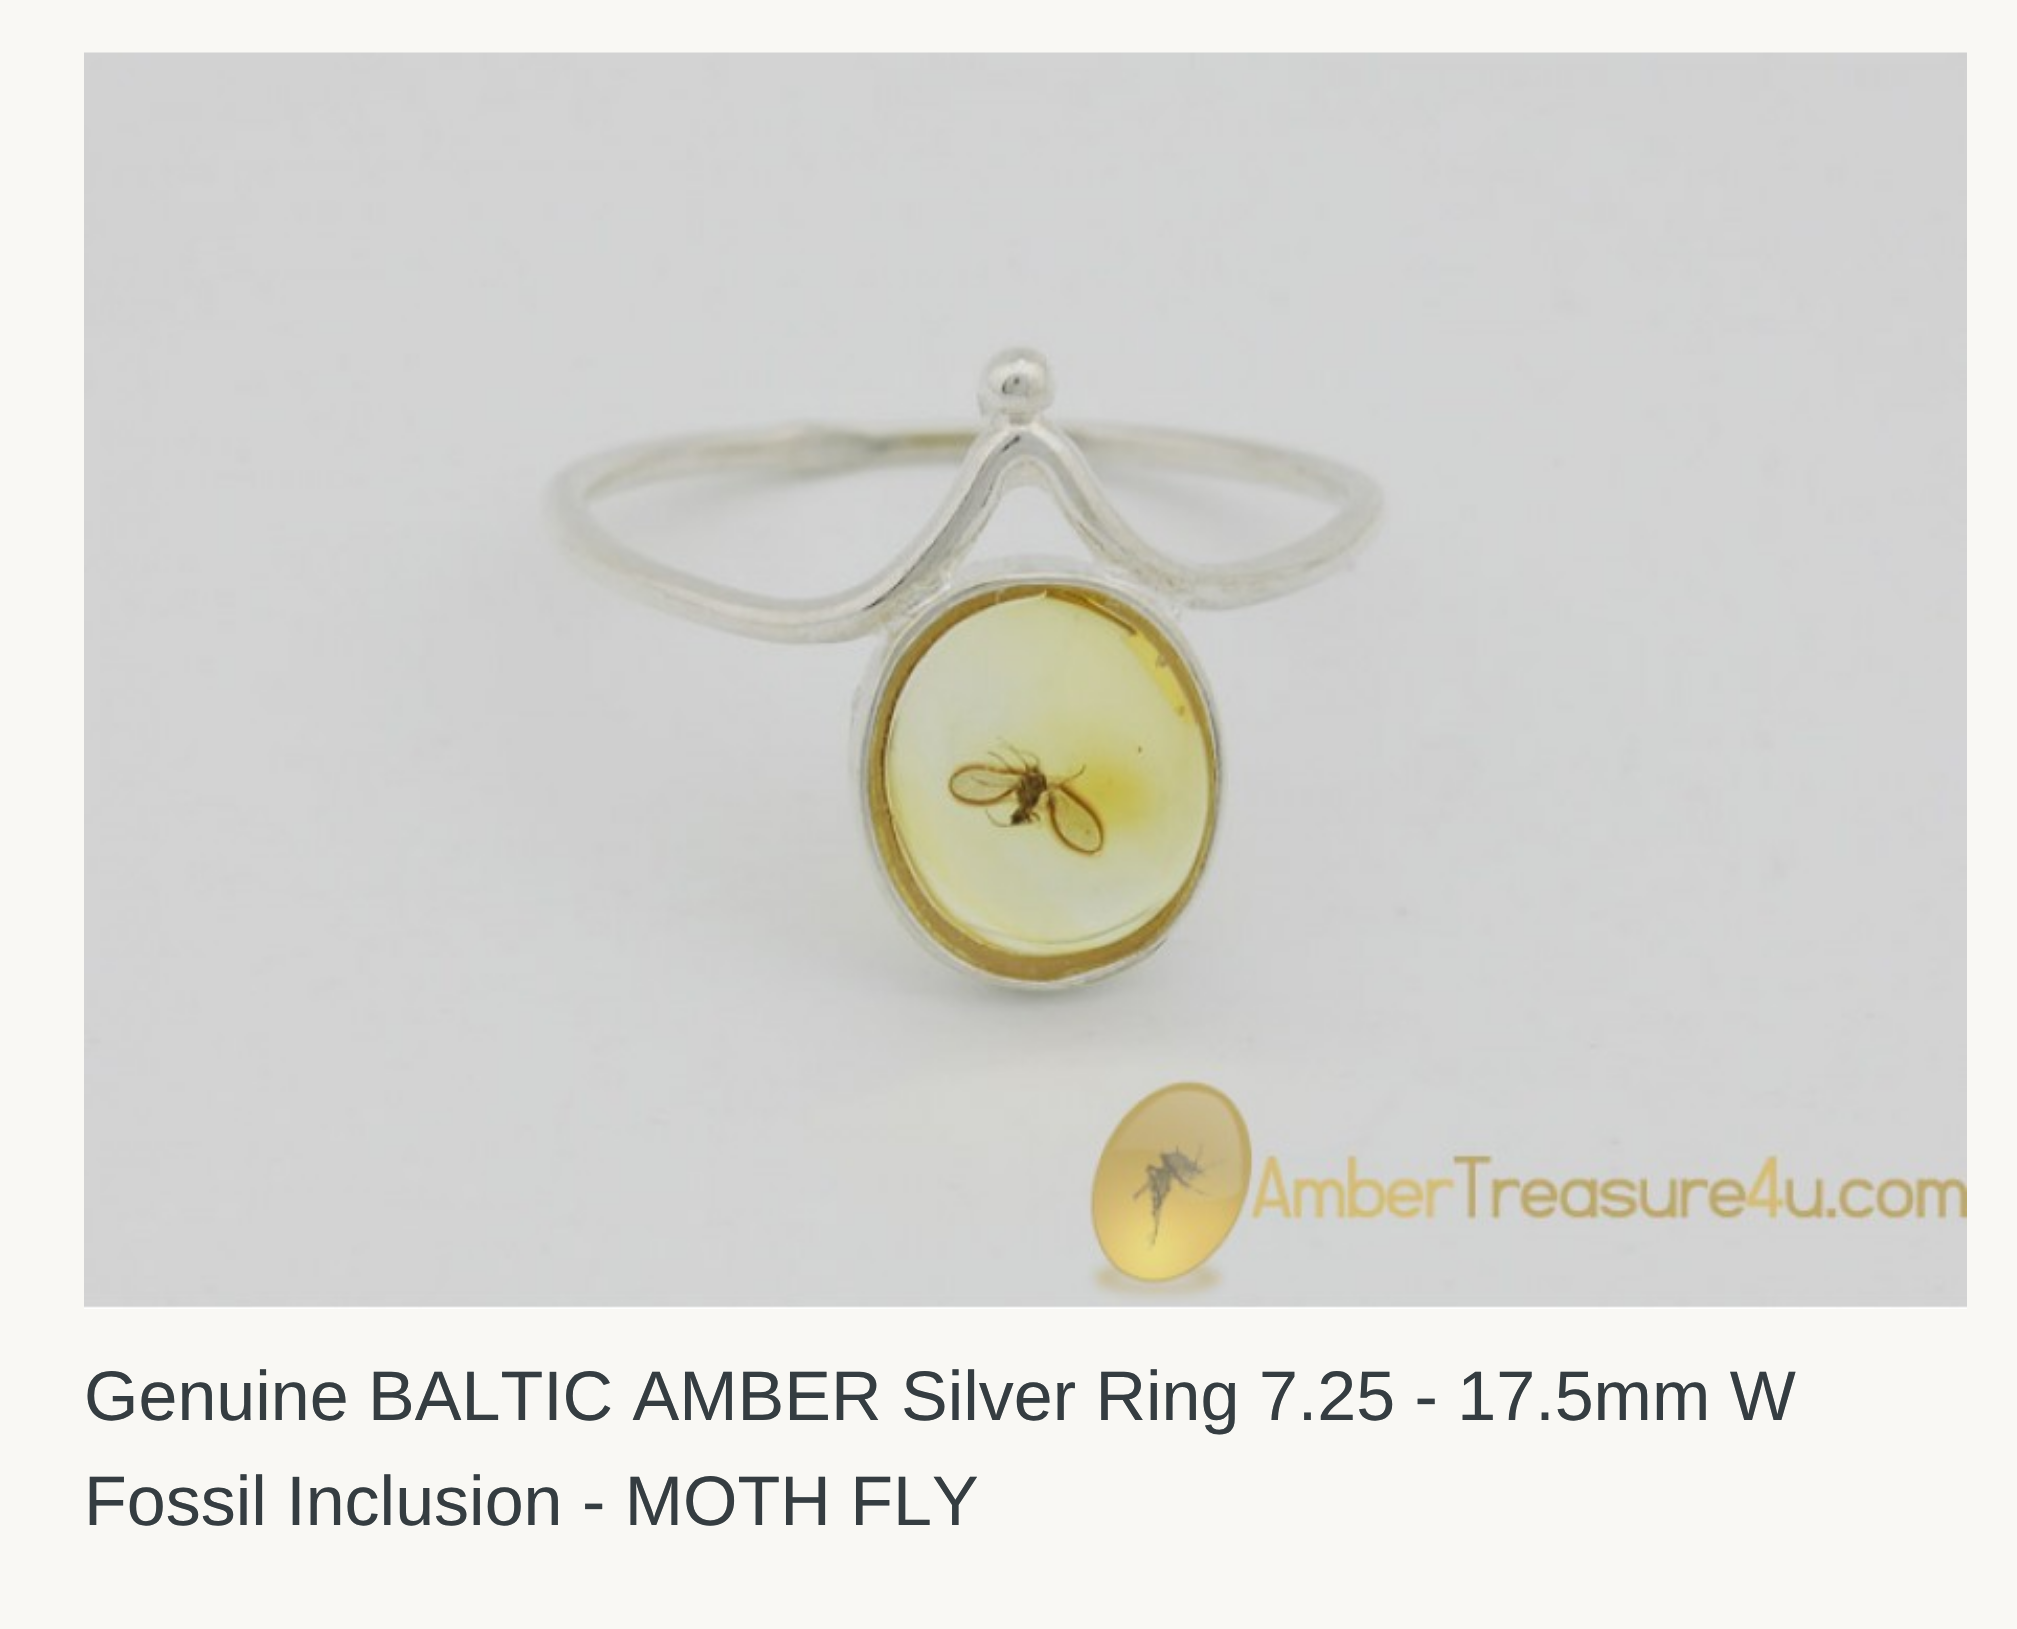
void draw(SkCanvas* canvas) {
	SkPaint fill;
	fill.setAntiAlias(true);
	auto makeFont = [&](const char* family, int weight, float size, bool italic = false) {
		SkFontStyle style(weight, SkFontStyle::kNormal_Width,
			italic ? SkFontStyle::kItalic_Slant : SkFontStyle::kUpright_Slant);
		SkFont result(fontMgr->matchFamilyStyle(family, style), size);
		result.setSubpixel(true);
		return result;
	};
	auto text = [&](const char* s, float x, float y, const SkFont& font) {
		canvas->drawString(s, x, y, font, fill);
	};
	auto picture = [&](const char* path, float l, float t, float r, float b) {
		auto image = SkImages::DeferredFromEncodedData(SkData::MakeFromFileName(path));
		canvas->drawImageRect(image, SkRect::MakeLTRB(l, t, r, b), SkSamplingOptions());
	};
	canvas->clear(0xFFF9F8F4);
	picture("image0.png", 84, 52, 1967, 1309);
	auto font1 = makeFont("Liberation Sans", 400, 70);
	fill.setColor(0xFF353D41);
	text("Genuine BALTIC AMBER Silver Ring 7.25 - 17.5mm W", 84, 1420, font1);
	text("Fossil Inclusion - MOTH FLY", 84, 1525, font1);
}
